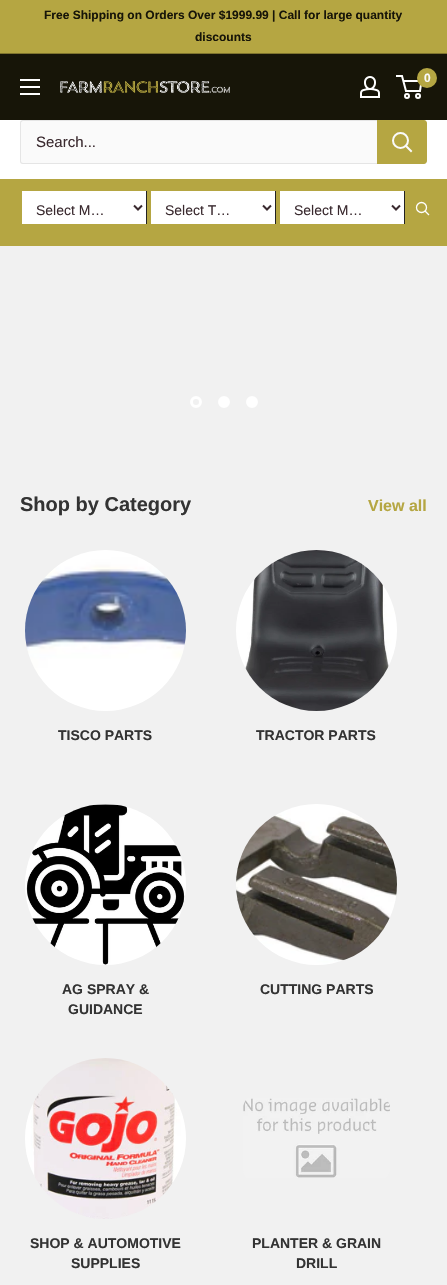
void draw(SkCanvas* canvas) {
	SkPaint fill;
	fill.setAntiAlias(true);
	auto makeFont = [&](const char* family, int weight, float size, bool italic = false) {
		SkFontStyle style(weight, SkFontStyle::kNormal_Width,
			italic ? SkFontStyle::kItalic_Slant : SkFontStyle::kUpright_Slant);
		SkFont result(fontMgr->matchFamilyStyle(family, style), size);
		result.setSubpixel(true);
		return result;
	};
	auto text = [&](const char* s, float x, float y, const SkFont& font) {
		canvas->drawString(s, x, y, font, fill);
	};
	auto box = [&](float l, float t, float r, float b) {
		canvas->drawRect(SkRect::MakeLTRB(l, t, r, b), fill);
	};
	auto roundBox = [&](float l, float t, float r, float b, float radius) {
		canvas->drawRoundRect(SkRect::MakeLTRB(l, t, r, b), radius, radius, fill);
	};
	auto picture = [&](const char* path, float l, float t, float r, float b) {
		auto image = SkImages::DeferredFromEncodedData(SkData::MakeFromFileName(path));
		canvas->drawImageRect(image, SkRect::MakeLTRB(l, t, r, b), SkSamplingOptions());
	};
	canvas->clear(0xFFF1F1F1);
	fill.setColor(0xFFB5A642);
	box(0, 0, 447, 53);
	fill.setColor(0xFF7F742E);
	box(0, 53, 447, 54);
	fill.setColor(0xFF171508);
	box(0, 54, 447, 120);
	picture("image0.png", 360, 76, 380, 98);
	fill.setStyle(SkPaint::kStroke_Style);
	fill.setStrokeWidth(2);
	fill.setColor(0xFFFFFFFF);
	canvas->drawCircle(407, 96, 2, fill);
	canvas->drawCircle(418, 96, 2, fill);
	canvas->drawPath(SkPathBuilder().moveTo(403.5f, 81).lineTo(421.5f, 81).lineTo(420, 91).lineTo(406, 91).lineTo(402, 76).lineTo(396, 76).detach(), fill);
	fill.setStyle(SkPaint::kFill_Style);
	fill.setColor(0xFFB5A642);
	canvas->drawCircle(427, 78, 10, fill);
	picture("image1.png", 20, 79, 40, 95);
	picture("image2.png", 60, 80, 230, 93);
	fill.setColor(0xFFFFFFFF);
	box(0, 120, 447, 179);
	fill.setColor(0xFFFAFAFA);
	roundBox(20, 120, 427, 164, 3);
	fill.setColor(0xFFE5E5E5);
	canvas->drawPath(SkPathBuilder(SkPathFillType::kEvenOdd).moveTo(23, 120).lineTo(377, 120).lineTo(377, 164).lineTo(23, 164).cubicTo(21, 164, 20, 163, 20, 161).lineTo(20, 123).cubicTo(20, 121, 21, 120, 23, 120).close().moveTo(23, 121).lineTo(377, 121).lineTo(377, 163).lineTo(23, 163).cubicTo(22, 163, 21, 162, 21, 161).lineTo(21, 123).cubicTo(21, 122, 22, 121, 23, 121).close().detach(), fill);
	fill.setColor(0xFFB5A642);
	canvas->drawPath(SkPathBuilder().moveTo(377, 120).lineTo(424, 120).cubicTo(425.5f, 120, 427, 121.5f, 427, 123).lineTo(427, 161).cubicTo(427, 162.5f, 425.5f, 164, 424, 164).lineTo(377, 164).close().detach(), fill);
	fill.setStyle(SkPaint::kStroke_Style);
	fill.setStrokeCap(SkPaint::kSquare_Cap);
	fill.setColor(0xFFFAFAFA);
	canvas->drawPath(SkPathBuilder().moveTo(411, 151).lineTo(406, 146).detach(), fill);
	fill.setStrokeCap(SkPaint::kButt_Cap);
	canvas->drawCircle(400.5f, 140.5f, 7.5f, fill);
	fill.setStyle(SkPaint::kFill_Style);
	fill.setColor(0xFFB5A642);
	box(0, 179, 447, 246);
	fill.setColor(0xFFFFFFFF);
	box(22, 191, 146, 224);
	fill.setColor(0xFF222222);
	box(146, 191, 147, 224);
	fill.setStyle(SkPaint::kStroke_Style);
	fill.setColor(0xFF3A2A2F);
	canvas->drawPath(SkPathBuilder().moveTo(134, 205.5f).lineTo(138, 209.5f).lineTo(142, 205.5f).detach(), fill);
	fill.setStyle(SkPaint::kFill_Style);
	fill.setColor(0xFFFFFFFF);
	box(151, 191, 275, 224);
	fill.setColor(0xFF222222);
	box(275, 191, 276, 224);
	fill.setStyle(SkPaint::kStroke_Style);
	fill.setColor(0xFF3A2A2F);
	canvas->drawPath(SkPathBuilder().moveTo(263, 205.5f).lineTo(267, 209.5f).lineTo(271, 205.5f).detach(), fill);
	fill.setStyle(SkPaint::kFill_Style);
	fill.setColor(0xFFFFFFFF);
	box(280, 191, 404, 224);
	fill.setColor(0xFF222222);
	box(404, 191, 405, 224);
	fill.setStyle(SkPaint::kStroke_Style);
	fill.setColor(0xFF3A2A2F);
	canvas->drawPath(SkPathBuilder().moveTo(392, 205.5f).lineTo(396, 209.5f).lineTo(400, 205.5f).detach(), fill);
	fill.setStrokeWidth(1.3f);
	fill.setStrokeCap(SkPaint::kSquare_Cap);
	fill.setColor(0xFFFFFFFF);
	canvas->drawPath(SkPathBuilder().moveTo(428.5f, 214.5f).lineTo(425.5f, 211.5f).detach(), fill);
	fill.setStrokeCap(SkPaint::kButt_Cap);
	canvas->drawCircle(421.5f, 207.5f, 5, fill);
	fill.setStrokeWidth(3);
	canvas->drawCircle(196, 402, 4.5f, fill);
	fill.setStyle(SkPaint::kFill_Style);
	canvas->drawCircle(224, 402, 4.5f, fill);
	fill.setStyle(SkPaint::kStroke_Style);
	canvas->drawCircle(224, 402, 4.5f, fill);
	fill.setStyle(SkPaint::kFill_Style);
	canvas->drawCircle(252, 402, 4.5f, fill);
	fill.setStyle(SkPaint::kStroke_Style);
	canvas->drawCircle(252, 402, 4.5f, fill);
	picture("image3.png", 25, 550, 186, 711);
	picture("image4.png", 236, 550, 397, 711);
	picture("image5.png", 25, 804, 186, 965);
	picture("image6.png", 236, 804, 397, 965);
	picture("image7.png", 25, 1058, 186, 1219);
	picture("image8.png", 243, 1098, 390, 1178);
	auto font1 = makeFont("Liberation Sans", 700, 12);
	fill.setStyle(SkPaint::kFill_Style);
	fill.setColor(0xFF171508);
	text("Free Shipping on Orders Over $1999.99 | Call for large quantity", 44, 19, font1);
	text("discounts", 195, 41, font1);
	fill.setColor(0xFFFAFAFA);
	text("0", 424, 82, font1);
	auto font2 = makeFont("Liberation Sans", 400, 15);
	fill.setColor(0xFF3A2A2F);
	text("Search...", 36, 147, font2);
	auto font3 = makeFont("Liberation Sans", 400, 14);
	text("Select M…", 36, 215, font3);
	text("Select T…", 165, 215, font3);
	text("Select M…", 294, 215, font3);
	auto font4 = makeFont("Liberation Sans", 700, 20);
	fill.setColor(0xFF333333);
	text("Shop by Category", 20, 511, font4);
	auto font5 = makeFont("Liberation Sans", 700, 16);
	fill.setColor(0xFFB5A642);
	text("View all", 368, 511, font5);
	auto font6 = makeFont("Liberation Sans", 700, 14);
	fill.setColor(0xFF333333);
	text("TISCO PARTS", 58, 740, font6);
	text("TRACTOR PARTS", 256, 740, font6);
	text("AG SPRAY &", 62, 994, font6);
	text("GUIDANCE", 68, 1014, font6);
	text("CUTTING PARTS", 260, 994, font6);
	text("SHOP & AUTOMOTIVE", 30, 1248, font6);
	text("SUPPLIES", 71, 1268, font6);
	text("PLANTER & GRAIN", 252, 1248, font6);
	text("DRILL", 296, 1268, font6);
}
